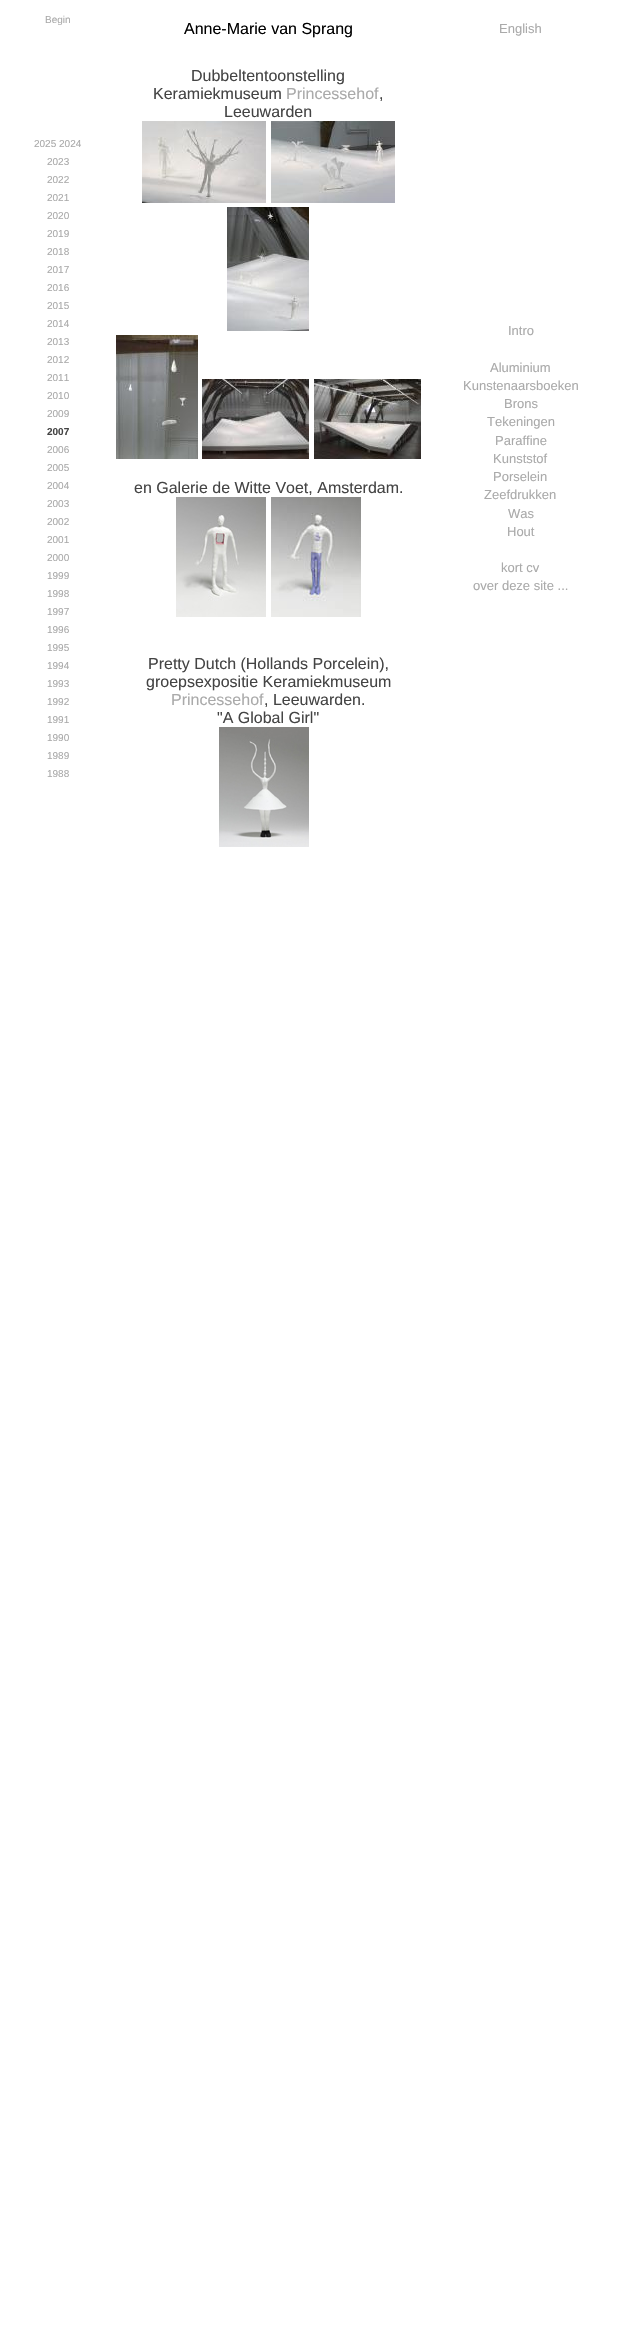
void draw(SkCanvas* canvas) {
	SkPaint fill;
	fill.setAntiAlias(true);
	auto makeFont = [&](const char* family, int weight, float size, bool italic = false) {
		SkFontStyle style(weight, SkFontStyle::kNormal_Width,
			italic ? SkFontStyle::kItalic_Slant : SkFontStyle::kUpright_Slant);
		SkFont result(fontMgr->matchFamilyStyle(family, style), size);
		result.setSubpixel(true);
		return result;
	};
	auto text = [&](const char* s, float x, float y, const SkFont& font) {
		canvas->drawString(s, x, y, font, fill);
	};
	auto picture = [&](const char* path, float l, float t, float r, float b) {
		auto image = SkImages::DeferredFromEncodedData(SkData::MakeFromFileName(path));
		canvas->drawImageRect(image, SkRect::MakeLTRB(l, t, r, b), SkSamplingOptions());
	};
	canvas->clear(0xFFFFFFFF);
	picture("image0.png", 142, 121, 266, 203);
	picture("image1.png", 271, 121, 395, 203);
	picture("image2.png", 227, 207, 309, 331);
	picture("image3.png", 116, 335, 198, 459);
	picture("image4.png", 202, 379, 309, 459);
	picture("image5.png", 314, 379, 421, 459);
	picture("image6.png", 176, 497, 266, 617);
	picture("image7.png", 271, 497, 361, 617);
	picture("image8.png", 219, 727, 309, 847);
	auto font1 = makeFont("Liberation Sans", 400, 10);
	fill.setColor(0xFFAAAAAA);
	text("Begin", 45, 23, font1);
	auto font2 = makeFont("Liberation Sans", 400, 16);
	fill.setColor(0xFF000000);
	text("Anne-Marie van Sprang", 184, 34, font2);
	auto font3 = makeFont("Liberation Sans", 400, 13);
	fill.setColor(0xFFAAAAAA);
	text("English", 499, 33, font3);
	text("2025 2024", 34, 147, font1);
	text("2023", 47, 165, font1);
	text("2022", 47, 183, font1);
	text("2021", 47, 201, font1);
	text("2020", 47, 219, font1);
	text("2019", 47, 237, font1);
	text("2018", 47, 255, font1);
	text("2017", 47, 273, font1);
	text("2016", 47, 291, font1);
	text("2015", 47, 309, font1);
	text("2014", 47, 327, font1);
	text("2013", 47, 345, font1);
	text("2012", 47, 363, font1);
	text("2011", 47, 381, font1);
	text("2010", 47, 399, font1);
	text("2009", 47, 417, font1);
	auto font4 = makeFont("Liberation Sans", 700, 10);
	fill.setColor(0xFF444444);
	text("2007", 47, 435, font4);
	fill.setColor(0xFFAAAAAA);
	text("2006", 47, 453, font1);
	text("2005", 47, 471, font1);
	text("2004", 47, 489, font1);
	text("2003", 47, 507, font1);
	text("2002", 47, 525, font1);
	text("2001", 47, 543, font1);
	text("2000", 47, 561, font1);
	text("1999", 47, 579, font1);
	text("1998", 47, 597, font1);
	text("1997", 47, 615, font1);
	text("1996", 47, 633, font1);
	text("1995", 47, 651, font1);
	text("1994", 47, 669, font1);
	text("1993", 47, 687, font1);
	text("1992", 47, 705, font1);
	text("1991", 47, 723, font1);
	text("1990", 47, 741, font1);
	text("1989", 47, 759, font1);
	text("1988", 47, 777, font1);
	fill.setColor(0xFF444444);
	text("Dubbeltentoonstelling", 191, 81, font2);
	text("Keramiekmuseum", 153, 99, font2);
	fill.setColor(0xFFAAAAAA);
	text("Princessehof", 286, 99, font2);
	fill.setColor(0xFF444444);
	text(",", 379, 99, font2);
	text("Leeuwarden", 224, 117, font2);
	text("en Galerie de Witte Voet, Amsterdam.", 134, 493, font2);
	text("Pretty Dutch (Hollands Porcelein),", 148, 669, font2);
	text("groepsexpositie Keramiekmuseum", 146, 687, font2);
	fill.setColor(0xFFAAAAAA);
	text("Princessehof", 171, 705, font2);
	fill.setColor(0xFF444444);
	text(", Leeuwarden.", 264, 705, font2);
	text("\"A Global Girl\"", 217, 723, font2);
	fill.setColor(0xFFAAAAAA);
	text("Intro", 508, 335, font3);
	text("Aluminium", 490, 372, font3);
	text("Kunstenaarsboeken", 463, 390, font3);
	text("Brons", 504, 408, font3);
	text("Tekeningen", 487, 426, font3);
	text("Paraffine", 495, 445, font3);
	text("Kunststof", 493, 463, font3);
	text("Porselein", 493, 481, font3);
	text("Zeefdrukken", 484, 499, font3);
	text("Was", 508, 518, font3);
	text("Hout", 507, 536, font3);
	text("kort cv", 501, 572, font3);
	text("over deze site ...", 473, 590, font3);
}
